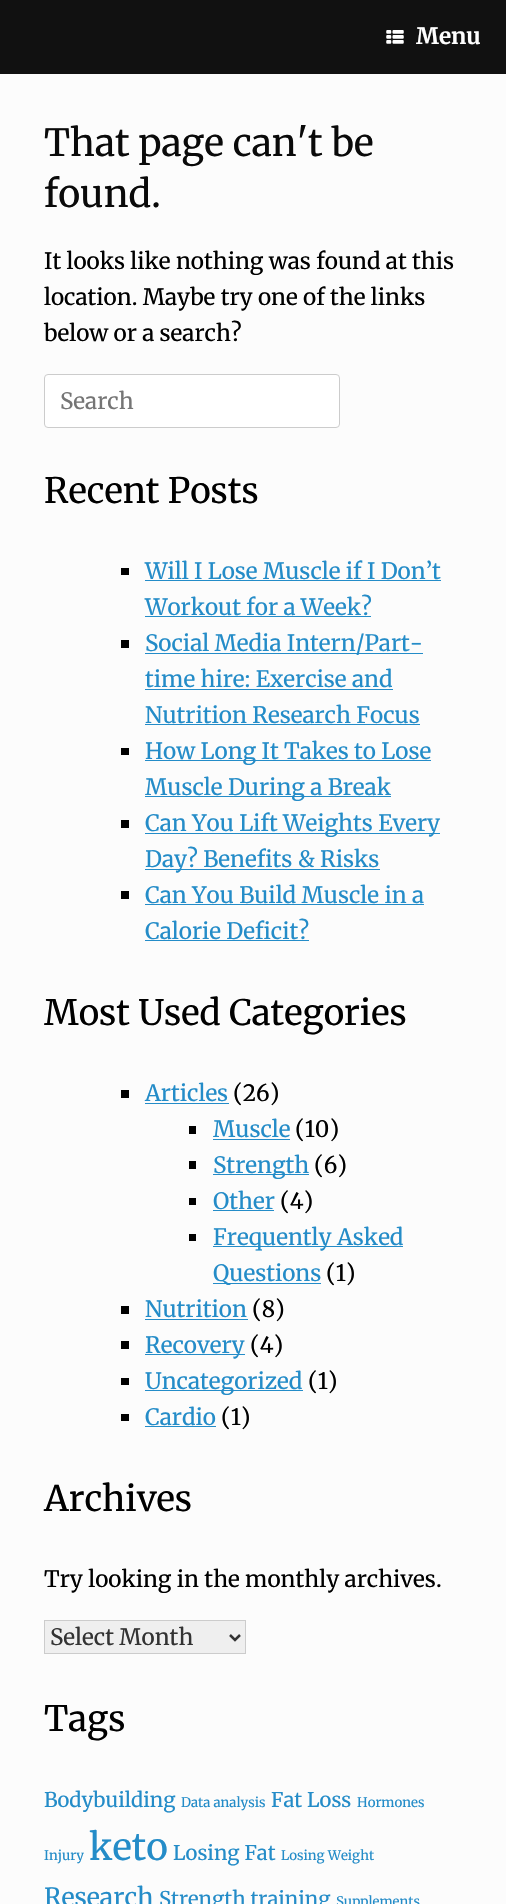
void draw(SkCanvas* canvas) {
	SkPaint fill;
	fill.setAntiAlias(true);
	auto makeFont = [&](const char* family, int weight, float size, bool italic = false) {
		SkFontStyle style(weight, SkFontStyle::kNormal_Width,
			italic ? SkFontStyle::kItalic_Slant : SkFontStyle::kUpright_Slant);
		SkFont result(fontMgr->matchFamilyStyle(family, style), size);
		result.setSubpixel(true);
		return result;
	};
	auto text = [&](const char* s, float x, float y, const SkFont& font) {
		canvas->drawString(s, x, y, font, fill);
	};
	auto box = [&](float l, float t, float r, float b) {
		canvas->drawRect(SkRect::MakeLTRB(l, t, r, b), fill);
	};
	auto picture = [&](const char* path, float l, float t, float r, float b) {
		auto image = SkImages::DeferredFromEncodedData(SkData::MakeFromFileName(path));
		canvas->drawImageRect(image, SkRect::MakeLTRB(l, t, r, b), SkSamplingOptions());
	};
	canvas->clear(0xFFFCFCFC);
	fill.setColor(0xFF111111);
	box(0, 0, 506, 74);
	picture("image0.png", 386, 30, 404, 44);
	fill.setColor(0xFFFFFFFF);
	canvas->drawRoundRect(SkRect::MakeLTRB(44.5f, 374.5f, 339.5f, 427.5f), 3.5f, 3.5f, fill);
	fill.setStyle(SkPaint::kStroke_Style);
	fill.setStrokeWidth(1);
	fill.setColor(0xFFCCCCCC);
	canvas->drawRoundRect(SkRect::MakeLTRB(44.5f, 374.5f, 339.5f, 427.5f), 3.5f, 3.5f, fill);
	fill.setStyle(SkPaint::kFill_Style);
	fill.setColor(0xFF000000);
	box(121, 568, 129, 575);
	fill.setColor(0xFF248CC8);
	box(145, 580, 441, 581);
	box(145, 616, 371, 617);
	fill.setColor(0xFF000000);
	box(121, 640, 129, 648);
	fill.setColor(0xFF248CC8);
	box(145, 653, 423, 654);
	box(145, 689, 393, 690);
	box(145, 724, 420, 725);
	fill.setColor(0xFF000000);
	box(121, 748, 129, 755);
	fill.setColor(0xFF248CC8);
	box(145, 760, 431, 761);
	box(145, 796, 391, 797);
	fill.setColor(0xFF000000);
	box(121, 820, 129, 828);
	fill.setColor(0xFF248CC8);
	box(145, 833, 440, 834);
	box(145, 869, 380, 870);
	fill.setColor(0xFF000000);
	box(121, 891, 129, 899);
	fill.setColor(0xFF248CC8);
	box(145, 904, 424, 905);
	box(145, 940, 309, 941);
	fill.setColor(0xFF000000);
	box(121, 1090, 129, 1098);
	fill.setColor(0xFF248CC8);
	box(145, 1103, 229, 1104);
	fill.setColor(0xFF000000);
	box(189, 1126, 196, 1134);
	fill.setColor(0xFF248CC8);
	box(213, 1139, 290, 1140);
	fill.setColor(0xFF000000);
	box(189, 1161, 196, 1169);
	fill.setColor(0xFF248CC8);
	box(213, 1174, 309, 1175);
	fill.setColor(0xFF000000);
	box(189, 1198, 196, 1205);
	fill.setColor(0xFF248CC8);
	box(213, 1210, 274, 1211);
	fill.setColor(0xFF000000);
	box(189, 1234, 196, 1241);
	fill.setColor(0xFF248CC8);
	box(213, 1246, 403, 1247);
	box(213, 1283, 321, 1284);
	fill.setColor(0xFF000000);
	box(121, 1306, 129, 1314);
	fill.setColor(0xFF248CC8);
	box(145, 1319, 248, 1320);
	fill.setColor(0xFF000000);
	box(121, 1341, 129, 1349);
	fill.setColor(0xFF248CC8);
	box(145, 1354, 245, 1355);
	fill.setColor(0xFF000000);
	box(121, 1378, 129, 1385);
	fill.setColor(0xFF248CC8);
	box(145, 1390, 303, 1391);
	fill.setColor(0xFF000000);
	box(121, 1414, 129, 1421);
	fill.setColor(0xFF248CC8);
	box(145, 1426, 216, 1427);
	fill.setColor(0xFFEFEFEF);
	canvas->drawRect(SkRect::MakeLTRB(44.5f, 1620.5f, 245.5f, 1653.5f), fill);
	fill.setStyle(SkPaint::kStroke_Style);
	fill.setColor(0xFFCCCCCC);
	canvas->drawRect(SkRect::MakeLTRB(44.5f, 1620.5f, 245.5f, 1653.5f), fill);
	fill.setStrokeWidth(2.5f);
	fill.setColor(0xFF333333);
	canvas->drawPath(SkPathBuilder().moveTo(230, 1635).lineTo(235, 1640).lineTo(240, 1635).detach(), fill);
	auto font1 = makeFont("Merriweather", 700, 22.5f);
	fill.setStyle(SkPaint::kFill_Style);
	fill.setColor(0xFFFFFFFF);
	text("Menu", 416, 44, font1);
	auto font2 = makeFont("Merriweather", 400, 37.5f);
	fill.setColor(0xFF0A0A0A);
	text("That page can't be", 44, 156, font2);
	text("found.", 44, 207, font2);
	auto font3 = makeFont("Merriweather", 400, 22.5f);
	fill.setColor(0xFF000000);
	text("It looks like nothing was found at this", 44, 269, font3);
	text("location. Maybe try one of the links", 44, 305, font3);
	text("below or a search?", 44, 341, font3);
	fill.setColor(0xFF757575);
	text("Search", 60, 409, font3);
	auto font4 = makeFont("Merriweather", 400, 35);
	fill.setColor(0xFF000000);
	text("Recent Posts", 44, 503, font4);
	fill.setColor(0xFF248CC8);
	text("Will I Lose Muscle if I Don’t", 145, 579, font3);
	text("Workout for a Week?", 145, 615, font3);
	text("Social Media Intern/Part-", 145, 651, font3);
	text("time hire: Exercise and", 145, 687, font3);
	text("Nutrition Research Focus", 145, 723, font3);
	text("How Long It Takes to Lose", 145, 759, font3);
	text("Muscle During a Break", 145, 795, font3);
	text("Can You Lift Weights Every", 145, 831, font3);
	text("Day? Benefits & Risks", 145, 867, font3);
	text("Can You Build Muscle in a", 145, 903, font3);
	text("Calorie Deficit?", 145, 939, font3);
	fill.setColor(0xFF000000);
	text("Most Used Categories", 44, 1025, font4);
	fill.setColor(0xFF248CC8);
	text("Articles", 145, 1101, font3);
	fill.setColor(0xFF000000);
	text("(26)", 233, 1101, font3);
	fill.setColor(0xFF248CC8);
	text("Muscle", 213, 1137, font3);
	fill.setColor(0xFF000000);
	text("(10)", 295, 1137, font3);
	fill.setColor(0xFF248CC8);
	text("Strength", 213, 1173, font3);
	fill.setColor(0xFF000000);
	text("(6)", 314, 1173, font3);
	fill.setColor(0xFF248CC8);
	text("Other", 213, 1209, font3);
	fill.setColor(0xFF000000);
	text("(4)", 280, 1209, font3);
	fill.setColor(0xFF248CC8);
	text("Frequently Asked", 213, 1245, font3);
	text("Questions", 213, 1281, font3);
	fill.setColor(0xFF000000);
	text("(1)", 326, 1281, font3);
	fill.setColor(0xFF248CC8);
	text("Nutrition", 145, 1317, font3);
	fill.setColor(0xFF000000);
	text("(8)", 252, 1317, font3);
	fill.setColor(0xFF248CC8);
	text("Recovery", 145, 1353, font3);
	fill.setColor(0xFF000000);
	text("(4)", 250, 1353, font3);
	fill.setColor(0xFF248CC8);
	text("Uncategorized", 145, 1389, font3);
	fill.setColor(0xFF000000);
	text("(1)", 308, 1389, font3);
	fill.setColor(0xFF248CC8);
	text("Cardio", 145, 1425, font3);
	fill.setColor(0xFF000000);
	text("(1)", 221, 1425, font3);
	text("Archives", 44, 1511, font4);
	text("Try looking in the monthly archives.", 44, 1587, font3);
	fill.setColor(0xFF333333);
	text("Select Month", 50, 1645, font3);
	fill.setColor(0xFF000000);
	text("Tags", 44, 1731, font4);
	auto font5 = makeFont("Merriweather", 400, 20.25f);
	fill.setColor(0xFF248CC8);
	text("Bodybuilding", 44, 1807, font5);
	auto font6 = makeFont("Merriweather", 400, 13.25f);
	text("Data analysis", 181, 1807, font6);
	text("Fat Loss", 271, 1807, font5);
	text("Hormones", 357, 1807, font6);
	text("Injury", 44, 1860, font6);
	auto font7 = makeFont("Merriweather", 400, 37);
	text("keto", 89, 1860, font7);
	text("Losing Fat", 173, 1860, font5);
	text("Losing Weight", 281, 1860, font6);
	auto font8 = makeFont("Merriweather", 400, 25);
	text("Research", 44, 1906, font8);
	text("Strength training", 159, 1906, font5);
	text("Supplements", 336, 1906, font6);
}
